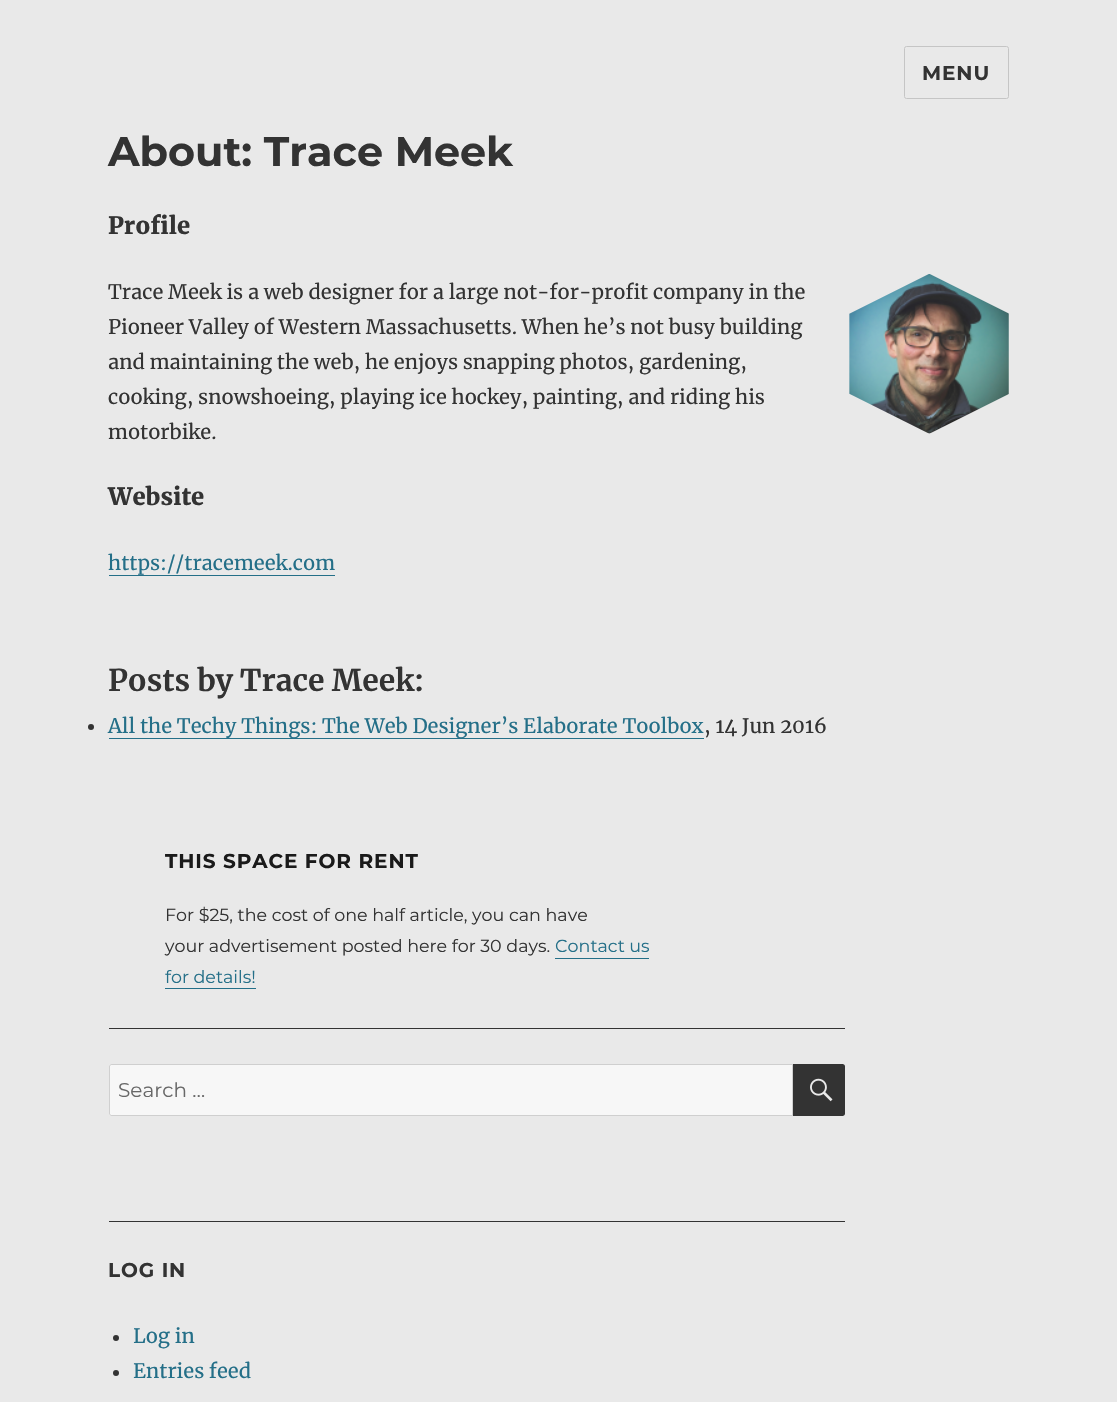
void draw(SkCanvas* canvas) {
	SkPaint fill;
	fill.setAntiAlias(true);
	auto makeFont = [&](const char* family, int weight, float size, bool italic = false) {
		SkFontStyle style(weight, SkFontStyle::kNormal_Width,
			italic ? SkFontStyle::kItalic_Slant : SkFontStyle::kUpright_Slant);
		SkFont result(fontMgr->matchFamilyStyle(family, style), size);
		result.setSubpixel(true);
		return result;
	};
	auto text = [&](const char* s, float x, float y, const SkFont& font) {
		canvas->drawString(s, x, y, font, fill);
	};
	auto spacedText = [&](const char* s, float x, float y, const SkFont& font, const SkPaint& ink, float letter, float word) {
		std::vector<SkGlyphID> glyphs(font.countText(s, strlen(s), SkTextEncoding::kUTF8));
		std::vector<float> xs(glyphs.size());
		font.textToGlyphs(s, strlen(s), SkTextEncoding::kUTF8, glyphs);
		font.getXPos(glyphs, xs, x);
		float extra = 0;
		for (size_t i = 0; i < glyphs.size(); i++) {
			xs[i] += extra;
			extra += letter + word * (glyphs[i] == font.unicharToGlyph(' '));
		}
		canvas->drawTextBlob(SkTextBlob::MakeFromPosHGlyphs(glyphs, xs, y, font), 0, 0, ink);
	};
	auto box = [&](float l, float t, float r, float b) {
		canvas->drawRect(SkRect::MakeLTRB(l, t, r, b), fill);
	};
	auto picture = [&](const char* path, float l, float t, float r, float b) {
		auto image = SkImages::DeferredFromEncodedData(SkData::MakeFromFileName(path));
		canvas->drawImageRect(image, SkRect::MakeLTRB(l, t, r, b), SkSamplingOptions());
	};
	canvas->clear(0xFFE9E9E9);
	fill.setStyle(SkPaint::kStroke_Style);
	fill.setStrokeWidth(1);
	fill.setColor(0xFFC5C5C5);
	canvas->drawRoundRect(SkRect::MakeLTRB(904.5f, 46.5f, 1008.5f, 98.5f), 2, 2, fill);
	picture("image0.png", 849, 274, 1009, 434);
	fill.setStyle(SkPaint::kFill_Style);
	fill.setColor(0xFF246F88);
	box(109, 575, 335, 576);
	fill.setColor(0xFF333333);
	canvas->drawCircle(91, 727, 3, fill);
	fill.setColor(0xFF246F88);
	canvas->drawPath(SkPathBuilder().moveTo(109, 738).lineTo(109, 739).lineTo(704, 739).lineTo(704, 714).lineTo(704, 738).close().detach(), fill);
	canvas->drawPath(SkPathBuilder().moveTo(555, 958).lineTo(555, 959).lineTo(649, 959).lineTo(649, 936).lineTo(649, 958).close().detach(), fill);
	box(165, 988, 256, 989);
	fill.setColor(0xFF333333);
	box(109, 1028, 845, 1029);
	fill.setColor(0xFFF7F7F7);
	canvas->drawPath(SkPathBuilder().moveTo(111.5f, 1064).lineTo(793, 1064).lineTo(793, 1116).lineTo(111.5f, 1116).cubicTo(110, 1116, 109, 1115, 109, 1113.5f).lineTo(109, 1066.5f).cubicTo(109, 1065, 110, 1064, 111.5f, 1064).close().detach(), fill);
	fill.setStyle(SkPaint::kStroke_Style);
	fill.setColor(0x33333333);
	canvas->drawPath(SkPathBuilder().moveTo(111.5f, 1064.5f).lineTo(792.5f, 1064.5f).lineTo(792.5f, 1115.5f).lineTo(111.5f, 1115.5f).cubicTo(110.5f, 1115.5f, 109.5f, 1114.5f, 109.5f, 1113.5f).lineTo(109.5f, 1066.5f).cubicTo(109.5f, 1065.5f, 110.5f, 1064.5f, 111.5f, 1064.5f).close().detach(), fill);
	fill.setStyle(SkPaint::kFill_Style);
	fill.setColor(0xFF333333);
	canvas->drawPath(SkPathBuilder().moveTo(793, 1064).lineTo(842.5f, 1064).cubicTo(844, 1064, 845, 1065, 845, 1066.5f).lineTo(845, 1113.5f).cubicTo(845, 1115, 844, 1116, 842.5f, 1116).lineTo(793, 1116).close().detach(), fill);
	picture("image1.png", 810, 1078, 833, 1102);
	box(109, 1221, 845, 1222);
	canvas->drawCircle(116, 1338, 3, fill);
	canvas->drawCircle(116, 1373, 3, fill);
	auto font1 = makeFont("Montserrat", 100, 20);
	spacedText("MENU", 922, 80, font1, fill, 0.9f, 0);
	auto font2 = makeFont("Montserrat", 100, 41.25f);
	text("About: Trace Meek", 108, 166, font2);
	auto font3 = makeFont("Merriweather", 900, 23.75f);
	text("Profile", 108, 234, font3);
	auto font4 = makeFont("Merriweather", 400, 20);
	text("Trace Meek is a web designer for a large not-for-profit company in the", 108, 299, font4);
	text("Pioneer Valley of Western Massachusetts. When he’s not busy building", 108, 334, font4);
	text("and maintaining the web, he enjoys snapping photos, gardening,", 108, 369, font4);
	text("cooking, snowshoeing, playing ice hockey, painting, and riding his", 108, 404, font4);
	text("motorbike.", 108, 439, font4);
	text("Website", 108, 505, font3);
	fill.setColor(0xFF246F88);
	text("https://tracemeek.com", 108, 570, font4);
	auto font5 = makeFont("Merriweather", 700, 30);
	fill.setColor(0xFF333333);
	text("Posts by Trace Meek:", 108, 691, font5);
	fill.setColor(0xFF246F88);
	text("All the Techy Things: The Web Designer’s Elaborate Toolbox", 108, 733, font4);
	fill.setColor(0xFF333333);
	text(", 14 Jun 2016", 704, 733, font4);
	fill.setColor(0xFF1A1A1A);
	spacedText("THIS SPACE FOR RENT", 165, 868, font1, fill, 0.9f, 0);
	auto font6 = makeFont("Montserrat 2", 100, 17.5f);
	fill.setColor(0xFF333333);
	text("For $25, the cost of one half article, you can have", 165, 921, font6);
	text("your advertisement posted here for 30 days.", 165, 952, font6);
	fill.setColor(0xFF246F88);
	text("Contact us", 555, 952, font6);
	text("for details!", 165, 983, font6);
	auto font7 = makeFont("Montserrat 2", 100, 20);
	fill.setColor(0xFF686868);
	text("Search …", 118, 1097, font7);
	fill.setColor(0xFF333333);
	spacedText("LOG IN", 108, 1277, font1, fill, 0.9f, 0);
	fill.setColor(0xFF246F88);
	text("Log in", 133, 1343, font4);
	text("Entries feed", 133, 1378, font4);
}
